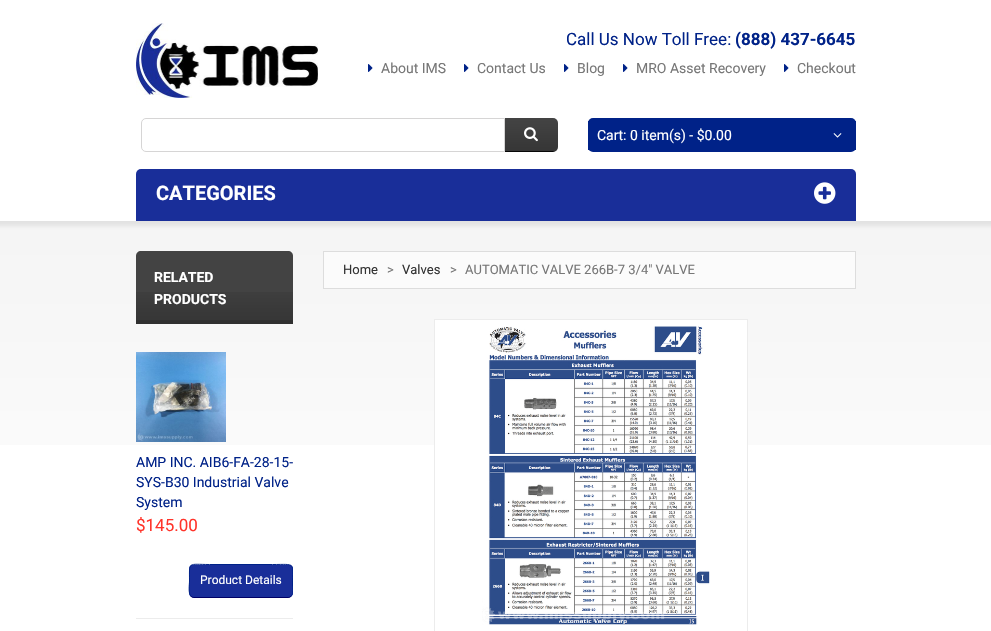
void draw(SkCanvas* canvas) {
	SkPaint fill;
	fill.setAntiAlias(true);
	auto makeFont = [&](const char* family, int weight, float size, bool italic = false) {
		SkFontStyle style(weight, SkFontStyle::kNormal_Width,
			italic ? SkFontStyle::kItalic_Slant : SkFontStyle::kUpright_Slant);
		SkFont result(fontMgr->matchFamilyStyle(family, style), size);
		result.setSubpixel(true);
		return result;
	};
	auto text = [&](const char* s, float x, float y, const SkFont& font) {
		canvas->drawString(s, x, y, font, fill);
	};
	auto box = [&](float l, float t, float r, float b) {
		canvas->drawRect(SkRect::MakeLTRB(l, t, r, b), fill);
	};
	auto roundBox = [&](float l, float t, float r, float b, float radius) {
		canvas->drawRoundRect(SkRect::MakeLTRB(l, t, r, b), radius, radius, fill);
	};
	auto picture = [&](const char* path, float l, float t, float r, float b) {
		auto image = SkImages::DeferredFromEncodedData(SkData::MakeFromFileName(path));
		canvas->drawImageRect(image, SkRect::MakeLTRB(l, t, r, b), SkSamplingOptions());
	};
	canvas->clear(0xFFFFFFFF);
	picture("image0.png", 136, 23, 318, 98);
	picture("image1.png", 368, 64, 373, 72);
	picture("image1.png", 464, 64, 469, 72);
	picture("image1.png", 564, 64, 569, 72);
	picture("image1.png", 623, 64, 628, 72);
	picture("image1.png", 784, 64, 789, 72);
	fill.setStyle(SkPaint::kStroke_Style);
	fill.setStrokeWidth(1);
	fill.setColor(0xFFD6D5D5);
	canvas->drawPath(SkPathBuilder().moveTo(146, 118.5f).lineTo(504.5f, 118.5f).lineTo(504.5f, 151.5f).lineTo(146, 151.5f).cubicTo(143.5f, 151.5f, 141.5f, 149.5f, 141.5f, 147).lineTo(141.5f, 123).cubicTo(141.5f, 120.5f, 143.5f, 118.5f, 146, 118.5f).close().detach(), fill);
	picture("image2.png", 505, 118, 558, 152);
	picture("image3.png", 524, 127, 538, 142);
	fill.setStyle(SkPaint::kFill_Style);
	fill.setColor(0xFF002288);
	roundBox(588, 118, 856, 152, 5);
	box(855, 121, 856, 150);
	box(588, 121, 589, 150);
	picture("image4.png", 833, 133, 842, 138);
	picture("image5.png", 136, 169, 856, 221);
	picture("image6.png", 814, 182, 836, 204);
	picture("image7.png", 0, 221, 991, 445);
	fill.setColor(0xFFFBFBFB);
	canvas->drawRect(SkRect::MakeLTRB(323.5f, 251.5f, 855.5f, 288.5f), fill);
	fill.setStyle(SkPaint::kStroke_Style);
	fill.setColor(0xFFDDDDDD);
	canvas->drawRect(SkRect::MakeLTRB(323.5f, 251.5f, 855.5f, 288.5f), fill);
	fill.setColor(0xFFECECEC);
	canvas->drawRect(SkRect::MakeLTRB(434.5f, 319.5f, 747.5f, 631.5f), fill);
	fill.setStyle(SkPaint::kFill_Style);
	fill.setColor(0xFFFFFFFF);
	box(435, 320, 747, 445);
	picture("image8.png", 482, 326, 710, 625);
	fill.setColor(0xFF434343);
	canvas->drawPath(SkPathBuilder().moveTo(141, 251).lineTo(288, 251).cubicTo(291, 251, 293, 253, 293, 256).lineTo(293, 324).lineTo(136, 324).lineTo(136, 256).cubicTo(136, 253, 138, 251, 141, 251).close().detach(), fill);
	picture("image9.png", 136, 292, 293, 324);
	fill.setColor(0xFFECECEC);
	box(136, 618, 293, 619);
	picture("image10.png", 136, 352, 226, 442);
	picture("image11.png", 189, 565, 293, 598);
	fill.setStyle(SkPaint::kStroke_Style);
	fill.setColor(0xFF000066);
	canvas->drawPath(SkPathBuilder().moveTo(291, 596).cubicTo(290.5f, 597, 289, 597.5f, 288, 597.5f).lineTo(194, 597.5f).cubicTo(193, 597.5f, 191.5f, 597, 191, 596).detach(), fill);
	canvas->save();
	canvas->clipRect(SkRect::MakeLTRB(136, 512, 293, 598));
	fill.setColor(0xFF002288);
	canvas->drawPath(SkPathBuilder().moveTo(191, 596).cubicTo(188, 593.5f, 189.5f, 584.5f, 189.5f, 581).cubicTo(189.5f, 561, 187.5f, 564.5f, 209.5f, 564.5f).lineTo(272.5f, 564.5f).cubicTo(296.5f, 564.5f, 292.5f, 561.5f, 292.5f, 585).cubicTo(292.5f, 588, 294, 593.5f, 291, 596).detach(), fill);
	canvas->restore();
	auto font1 = makeFont("Roboto", 400, 17);
	fill.setStyle(SkPaint::kFill_Style);
	text("Call Us Now Toll Free:", 566, 45, font1);
	auto font2 = makeFont("Roboto", 700, 17);
	text("(888) 437-6645", 735, 45, font2);
	auto font3 = makeFont("Roboto", 400, 14);
	fill.setColor(0xFF777777);
	text("About IMS", 381, 73, font3);
	text("Contact Us", 477, 73, font3);
	text("Blog", 577, 73, font3);
	text("MRO Asset Recovery", 636, 73, font3);
	text("Checkout", 797, 73, font3);
	fill.setColor(0xFFFFFFFF);
	text("Cart: 0 item(s) - $0.00", 597, 140, font3);
	auto font4 = makeFont("Roboto", 700, 20);
	text("CATEGORIES", 156, 200, font4);
	auto font5 = makeFont("Roboto", 400, 13);
	fill.setColor(0xFF333333);
	text("Home", 343, 274, font5);
	fill.setColor(0xFF777777);
	text(">", 387, 274, font5);
	fill.setColor(0xFF333333);
	text("Valves", 402, 274, font5);
	fill.setColor(0xFF777777);
	text(">", 450, 274, font5);
	text("AUTOMATIC VALVE 266B-7 3/4\" VALVE", 465, 274, font5);
	auto font6 = makeFont("Roboto", 700, 14);
	fill.setColor(0xFFFFFFFF);
	text("RELATED", 154, 282, font6);
	text("PRODUCTS", 154, 304, font6);
	fill.setColor(0xFF002288);
	text("AMP INC. AIB6-FA-28-15-", 136, 467, font3);
	text("SYS-B30 Industrial Valve", 136, 487, font3);
	text("System", 136, 507, font3);
	fill.setColor(0xFFFF342A);
	text("$145.00", 136, 531, font1);
	auto font7 = makeFont("Roboto", 400, 12);
	fill.setColor(0xFFFFFFFF);
	text("Product Details", 200, 584, font7);
}
